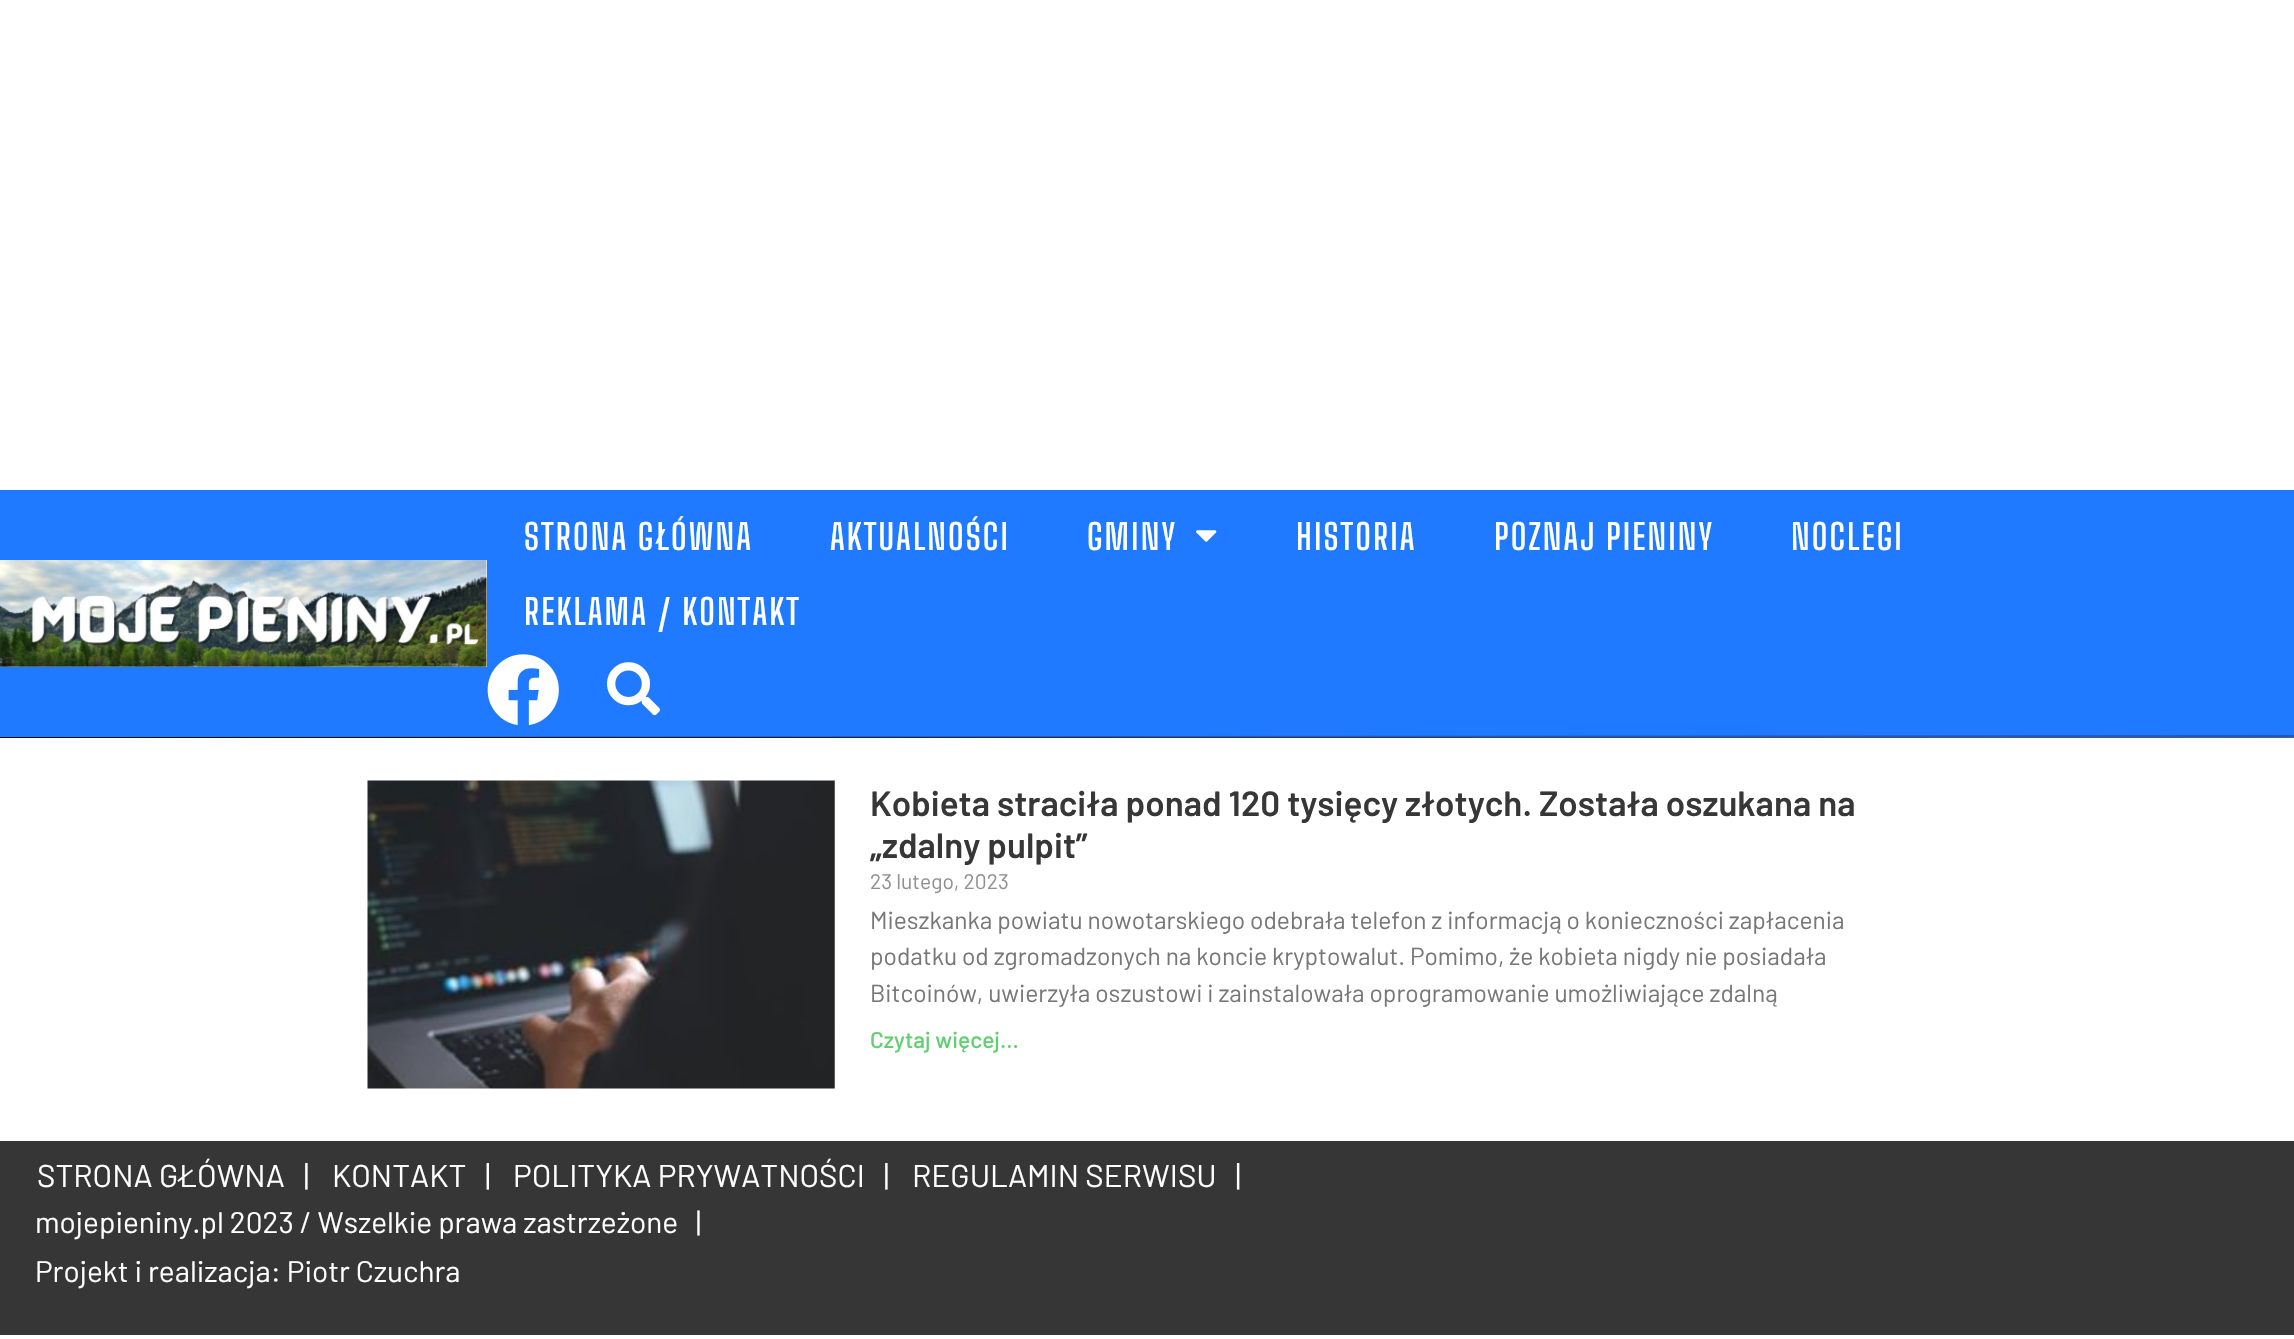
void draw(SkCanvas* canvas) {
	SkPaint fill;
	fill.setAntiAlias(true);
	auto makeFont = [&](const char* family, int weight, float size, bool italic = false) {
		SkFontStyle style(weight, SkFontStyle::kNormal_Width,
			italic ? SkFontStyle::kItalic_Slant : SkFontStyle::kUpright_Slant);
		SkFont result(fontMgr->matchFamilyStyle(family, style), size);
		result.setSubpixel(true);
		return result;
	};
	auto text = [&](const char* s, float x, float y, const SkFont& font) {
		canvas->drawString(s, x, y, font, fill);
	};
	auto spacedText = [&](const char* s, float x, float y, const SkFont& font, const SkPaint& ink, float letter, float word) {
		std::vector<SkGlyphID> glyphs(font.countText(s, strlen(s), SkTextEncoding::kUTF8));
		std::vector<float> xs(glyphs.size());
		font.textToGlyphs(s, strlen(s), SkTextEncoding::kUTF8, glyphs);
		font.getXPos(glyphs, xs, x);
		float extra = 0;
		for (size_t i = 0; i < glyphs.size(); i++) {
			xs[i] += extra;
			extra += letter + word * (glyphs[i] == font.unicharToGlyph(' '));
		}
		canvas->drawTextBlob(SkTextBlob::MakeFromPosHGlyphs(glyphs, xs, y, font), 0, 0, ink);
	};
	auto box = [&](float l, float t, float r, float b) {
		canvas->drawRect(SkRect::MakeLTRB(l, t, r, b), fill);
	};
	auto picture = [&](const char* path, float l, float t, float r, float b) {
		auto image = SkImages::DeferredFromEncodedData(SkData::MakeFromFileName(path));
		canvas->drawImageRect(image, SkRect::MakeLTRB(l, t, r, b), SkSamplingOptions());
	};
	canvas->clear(0xFFFFFFFF);
	fill.setColor(0xFF808080);
	box(151, 737, 2294, 738);
	fill.setColor(0xFF1F7AFF);
	box(0, 490, 2294, 737);
	fill.setColor(0xFFFFFFFF);
	box(0, 560, 487, 667);
	picture("image0.png", 0, 560, 487, 667);
	picture("image1.png", 1196, 530, 1217, 542);
	picture("image2.png", 487, 654, 559, 726);
	picture("image3.png", 607, 662, 660, 716);
	fill.setColor(0xFF000000);
	canvas->drawPath(SkPathBuilder().moveTo(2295, 738).lineTo(-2, 738).lineTo(-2, 737).close().detach(), fill);
	fill.setColor(0x40000000);
	canvas->drawPath(SkPathBuilder().moveTo(-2, 738).lineTo(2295, 738).lineTo(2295, 735).lineTo(-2, 737).close().detach(), fill);
	picture("image4.png", 367, 780, 835, 1089);
	fill.setColor(0xFF363636);
	box(0, 1141, 2294, 1335);
	auto font1 = makeFont("Big Shoulders Text", 600, 35);
	fill.setColor(0xFFFFFFFF);
	spacedText("STRONA GŁÓWNA", 524, 550, font1, fill, 2.1f, 0);
	spacedText("AKTUALNOŚCI", 830, 550, font1, fill, 2.1f, 0);
	spacedText("GMINY", 1087, 550, font1, fill, 2.1f, 0);
	spacedText("HISTORIA", 1296, 550, font1, fill, 2.1f, 0);
	spacedText("POZNAJ PIENINY", 1494, 550, font1, fill, 2.1f, 0);
	spacedText("NOCLEGI", 1791, 550, font1, fill, 2.1f, 0);
	spacedText("REKLAMA / KONTAKT", 524, 625, font1, fill, 2.1f, 0);
	auto font2 = makeFont("Barlow", 600, 35);
	fill.setColor(0xFF373737);
	text("Kobieta straciła ponad 120 tysięcy złotych. Została oszukana na", 870, 816, font2);
	text("„zdalny pulpit”", 870, 858, font2);
	auto font3 = makeFont("Barlow", 400, 21);
	fill.setColor(0xFF919191);
	text("23 lutego, 2023", 870, 889, font3);
	auto font4 = makeFont("Barlow", 400, 24.5f);
	fill.setColor(0xFF777777);
	text("Mieszkanka powiatu nowotarskiego odebrała telefon z informacją o konieczności zapłacenia", 870, 929, font4);
	text("podatku od zgromadzonych na koncie kryptowalut. Pomimo, że kobieta nigdy nie posiadała", 870, 965, font4);
	text("Bitcoinów, uwierzyła oszustowi i zainstalowała oprogramowanie umożliwiające zdalną", 870, 1002, font4);
	auto font5 = makeFont("Barlow", 500, 22.75f);
	fill.setColor(0xFF61CE70);
	text("Czytaj więcej...", 870, 1048, font5);
	auto font6 = makeFont("Barlow", 400, 31.5f);
	fill.setColor(0xFFFFFFFF);
	text("STRONA GŁÓWNA   |", 37, 1187, font6);
	text("KONTAKT   |", 332, 1187, font6);
	text("POLITYKA PRYWATNOŚCI   |", 513, 1187, font6);
	text("REGULAMIN SERWISU   |", 912, 1187, font6);
	auto font7 = makeFont("Barlow", 400, 29.75f);
	text("mojepieniny.pl 2023 / Wszelkie prawa zastrzeżone   |", 35, 1233, font7);
	text("Projekt i realizacja: Piotr Czuchra", 35, 1282, font7);
}
